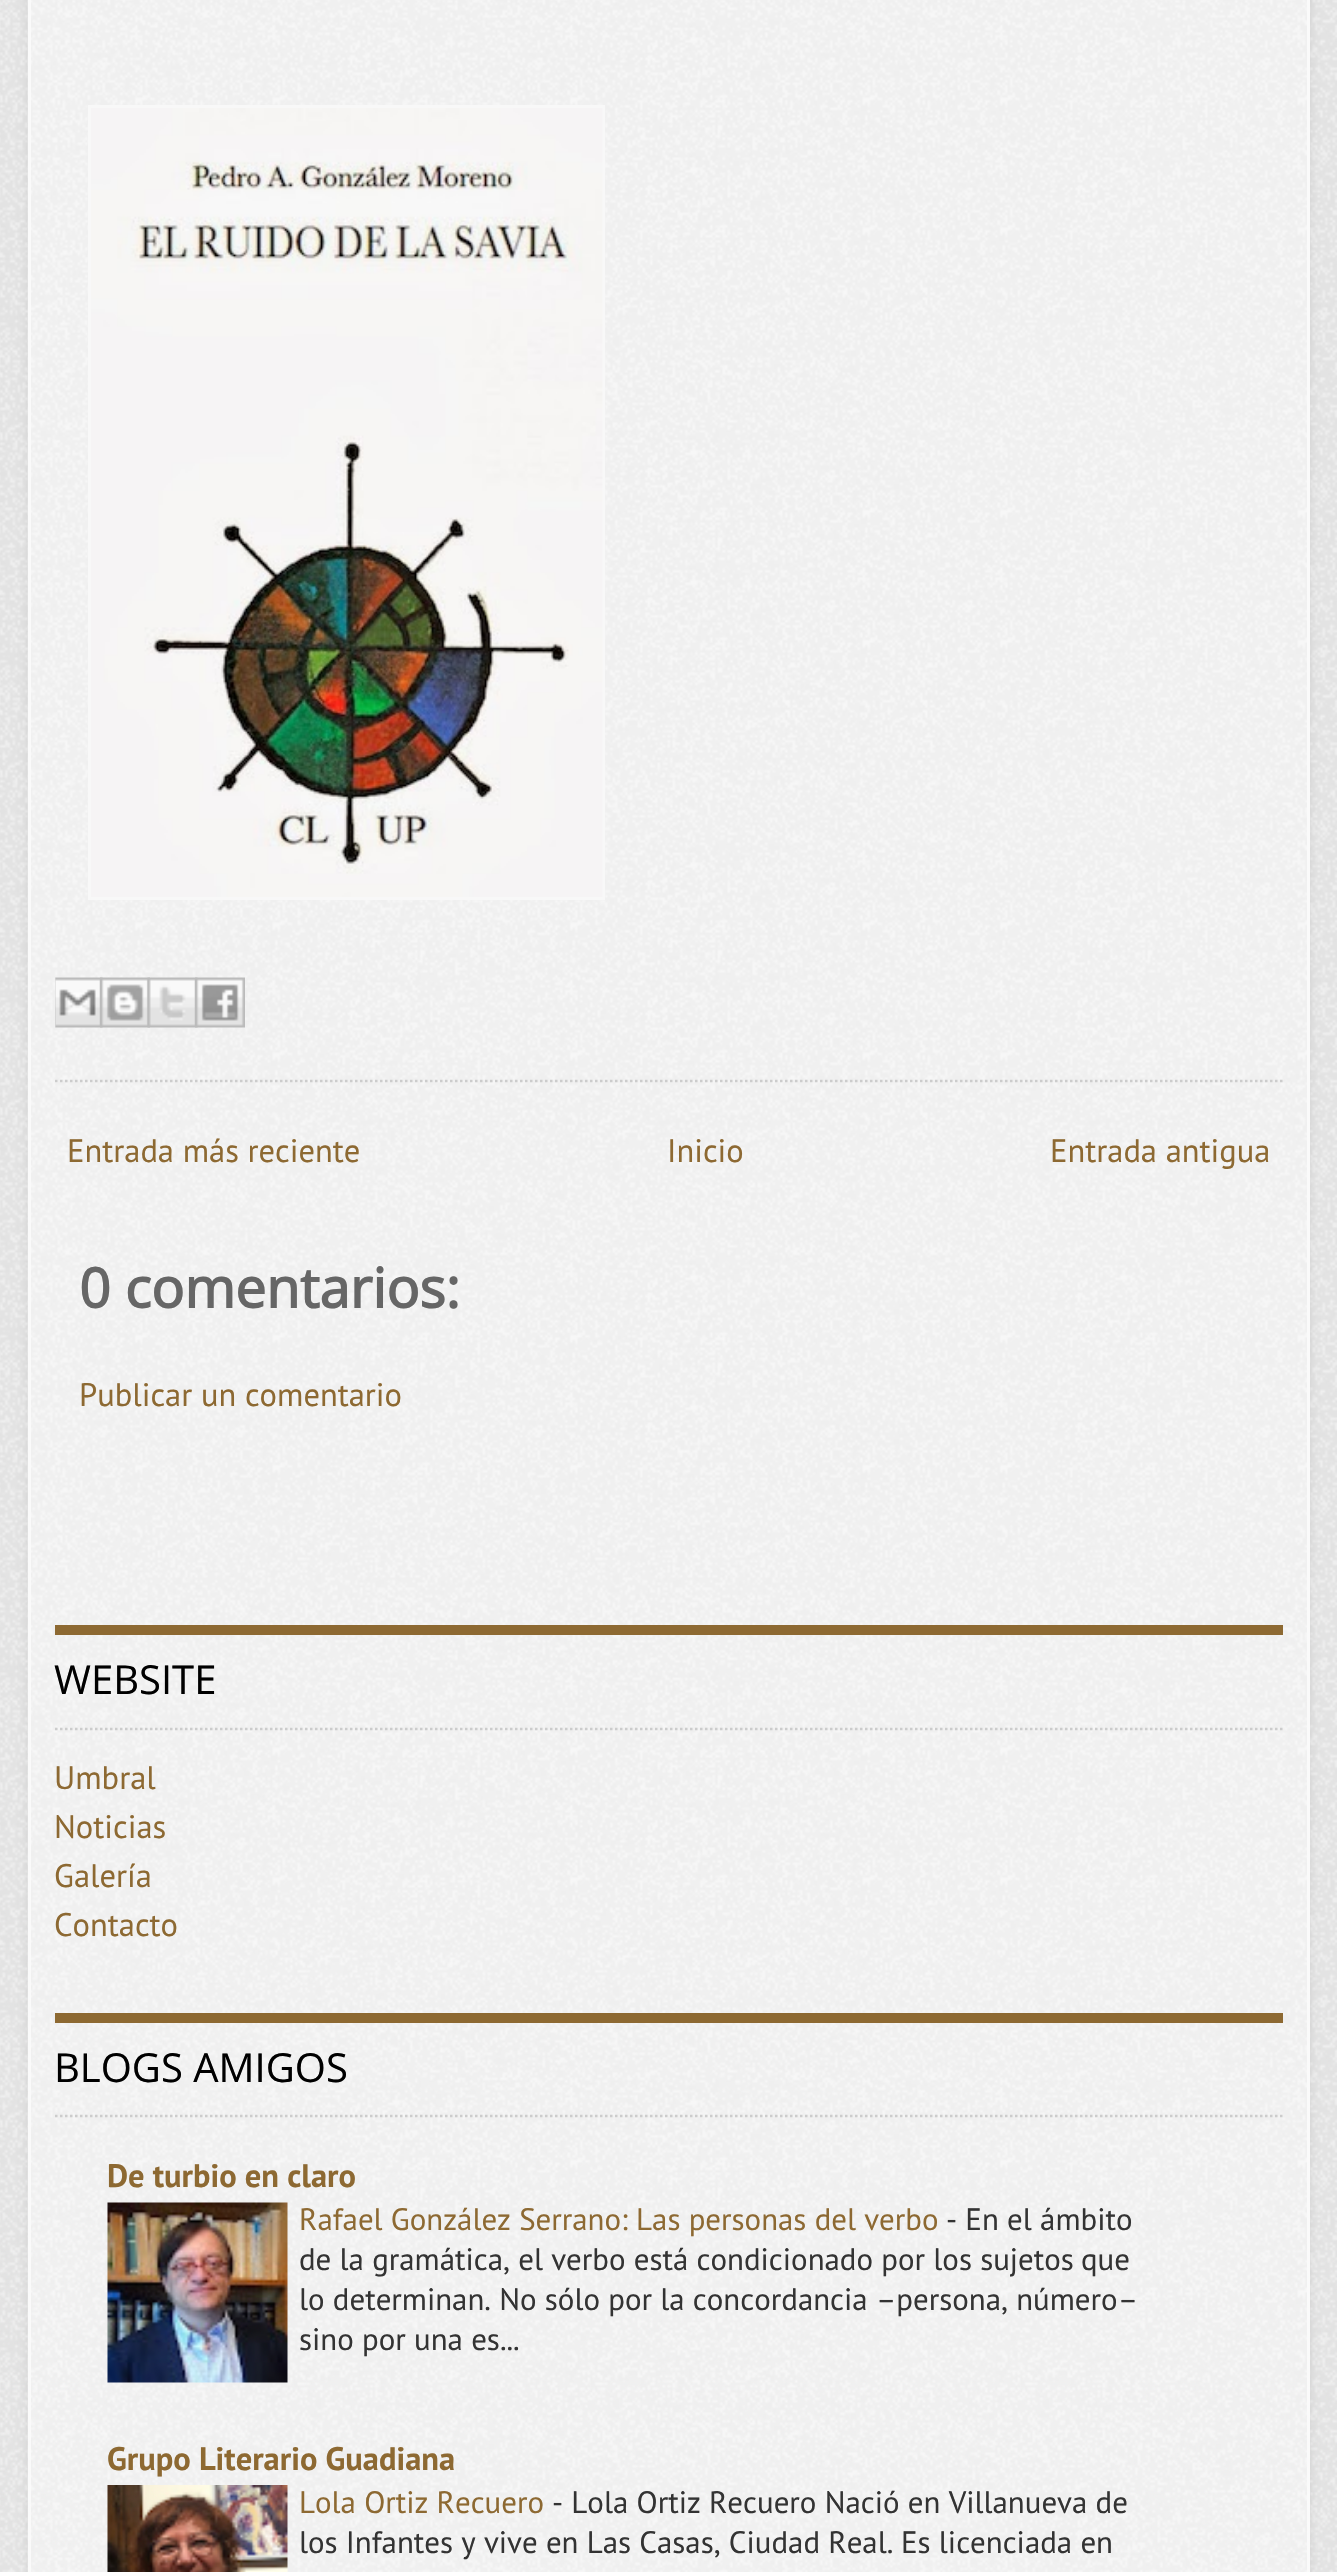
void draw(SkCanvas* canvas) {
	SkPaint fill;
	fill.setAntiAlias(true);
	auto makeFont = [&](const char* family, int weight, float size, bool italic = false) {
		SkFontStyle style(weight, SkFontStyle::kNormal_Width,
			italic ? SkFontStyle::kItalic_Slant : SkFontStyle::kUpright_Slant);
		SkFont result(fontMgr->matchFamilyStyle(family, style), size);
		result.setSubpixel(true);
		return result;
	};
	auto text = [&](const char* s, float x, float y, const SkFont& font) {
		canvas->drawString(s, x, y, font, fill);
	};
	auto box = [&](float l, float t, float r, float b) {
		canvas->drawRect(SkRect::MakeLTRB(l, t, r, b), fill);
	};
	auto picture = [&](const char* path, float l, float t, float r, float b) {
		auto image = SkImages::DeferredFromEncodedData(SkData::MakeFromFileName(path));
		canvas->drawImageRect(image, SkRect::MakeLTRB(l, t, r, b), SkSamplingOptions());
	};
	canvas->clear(0xFFFFFFFF);
	picture("image0.png", 0, 0, 1337, 2572);
	fill.setColor(0x17000000);
	fill.setMaskFilter(SkMaskFilter::MakeBlur(kNormal_SkBlurStyle, 5));
	canvas->drawRoundRect(SkRect::MakeLTRB(28, -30, 1310, 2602), 15, 15, fill);
	fill.setMaskFilter(nullptr);
	picture("image1.png", 27, 0, 1307, 2572);
	fill.setStyle(SkPaint::kStroke_Style);
	fill.setStrokeWidth(3);
	fill.setColor(0xFFFAFAFA);
	canvas->drawRect(SkRect::MakeLTRB(29.5f, -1.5f, 1308.5f, 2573.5f), fill);
	fill.setStrokeWidth(2.5f);
	fill.setColor(0xFFCCCCCC);
	fill.setPathEffect(SkDashPathEffect::Make({{2.5f, 2.5f}}, 0));
	canvas->drawPath(SkPathBuilder().moveTo(55, 1081).lineTo(1282.5f, 1081).detach(), fill);
	fill.setPathEffect(nullptr);
	fill.setStrokeWidth(3);
	fill.setColor(0xFFF8F8F8);
	canvas->drawRect(SkRect::MakeLTRB(89.5f, 106.5f, 603.5f, 898.5f), fill);
	picture("image2.png", 91, 108, 603, 897);
	picture("image3.png", 55, 977, 103, 1028);
	picture("image4.png", 100, 977, 150, 1028);
	picture("image5.png", 147, 977, 198, 1028);
	picture("image6.png", 195, 977, 245, 1028);
	fill.setStyle(SkPaint::kFill_Style);
	fill.setColor(0xFF8D6932);
	box(55, 1625, 1283, 1635);
	fill.setStyle(SkPaint::kStroke_Style);
	fill.setStrokeWidth(2.5f);
	fill.setColor(0xFFCCCCCC);
	fill.setPathEffect(SkDashPathEffect::Make({{2.5f, 2.5f}}, 0));
	canvas->drawPath(SkPathBuilder().moveTo(55, 1729).lineTo(1282.5f, 1729).detach(), fill);
	fill.setPathEffect(nullptr);
	fill.setStyle(SkPaint::kFill_Style);
	fill.setColor(0xFF8D6932);
	box(55, 2013, 1283, 2023);
	fill.setStyle(SkPaint::kStroke_Style);
	fill.setColor(0xFFCCCCCC);
	fill.setPathEffect(SkDashPathEffect::Make({{2.5f, 2.5f}}, 0));
	canvas->drawPath(SkPathBuilder().moveTo(55, 2116).lineTo(1282.5f, 2116).detach(), fill);
	fill.setPathEffect(nullptr);
	picture("image7.png", 107, 2202, 288, 2383);
	picture("image8.png", 107, 2485, 288, 2572);
	auto font1 = makeFont("PT Sans", 400, 32.5f);
	fill.setStyle(SkPaint::kFill_Style);
	fill.setColor(0xFF8D6932);
	text("Entrada más reciente", 67, 1162, font1);
	text("Inicio", 667, 1162, font1);
	text("Entrada antigua", 1050, 1162, font1);
	auto font2 = makeFont("Open Sans", 700, 55);
	fill.setColor(0xFF666666);
	text("0 comentarios:", 79, 1308, font2);
	fill.setColor(0xFF8D6932);
	text("Publicar un comentario", 79, 1406, font1);
	auto font3 = makeFont("Open Sans", 400, 40);
	fill.setColor(0xFF000000);
	text("WEBSITE", 54, 1694, font3);
	fill.setColor(0xFF8D6932);
	text("Umbral", 54, 1789, font1);
	text("Noticias", 54, 1838, font1);
	text("Galería", 54, 1887, font1);
	text("Contacto", 54, 1936, font1);
	fill.setColor(0xFF000000);
	text("BLOGS AMIGOS", 54, 2082, font3);
	auto font4 = makeFont("PT Sans", 700, 32.5f);
	fill.setColor(0xFF8D6932);
	text("De turbio en claro", 107, 2187, font4);
	auto font5 = makeFont("PT Sans", 400, 30.9f);
	text("Rafael González Serrano: Las personas del verbo", 299, 2230, font5);
	fill.setColor(0xFF333333);
	text("- En el ámbito", 946, 2230, font5);
	text("de la gramática, el verbo está condicionado por los sujetos", 299, 2270, font5);
	text("que", 1081, 2270, font5);
	text("lo determinan. No sólo por la concordancia –persona, número–", 299, 2310, font5);
	text("sino por una es...", 299, 2350, font5);
	fill.setColor(0xFF8D6932);
	text("Grupo Literario Guadiana", 107, 2470, font4);
	text("Lola Ortiz Recuero", 299, 2513, font5);
	fill.setColor(0xFF333333);
	text("- Lola Ortiz Recuero Nació en Villanueva de", 552, 2513, font5);
	text("los Infantes y vive en Las Casas, Ciudad Real.", 299, 2553, font5);
	text("Es licenciada en", 901, 2553, font5);
}
